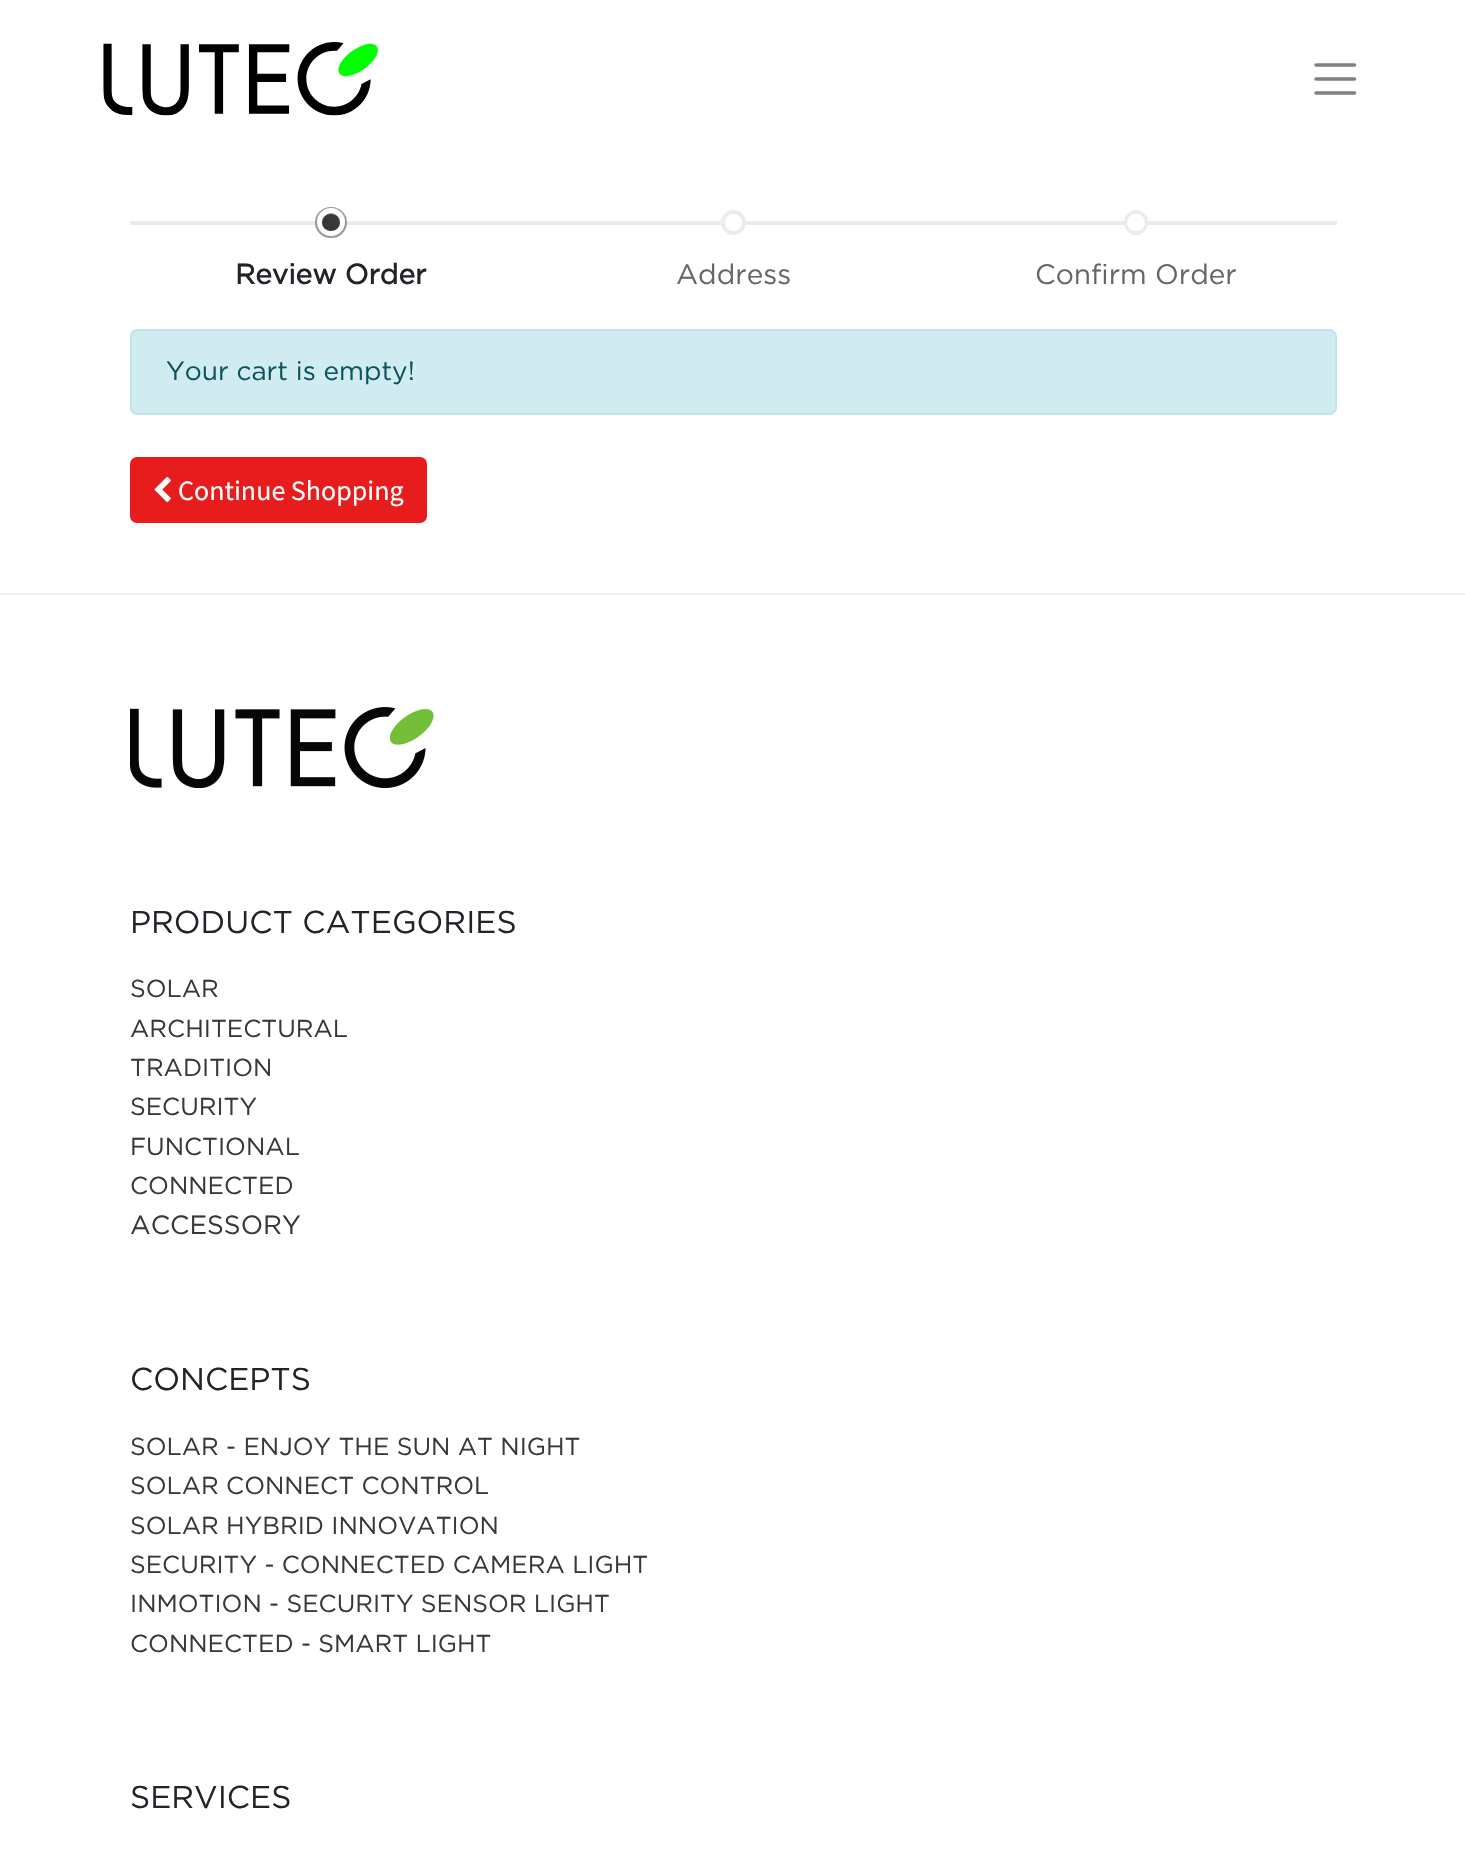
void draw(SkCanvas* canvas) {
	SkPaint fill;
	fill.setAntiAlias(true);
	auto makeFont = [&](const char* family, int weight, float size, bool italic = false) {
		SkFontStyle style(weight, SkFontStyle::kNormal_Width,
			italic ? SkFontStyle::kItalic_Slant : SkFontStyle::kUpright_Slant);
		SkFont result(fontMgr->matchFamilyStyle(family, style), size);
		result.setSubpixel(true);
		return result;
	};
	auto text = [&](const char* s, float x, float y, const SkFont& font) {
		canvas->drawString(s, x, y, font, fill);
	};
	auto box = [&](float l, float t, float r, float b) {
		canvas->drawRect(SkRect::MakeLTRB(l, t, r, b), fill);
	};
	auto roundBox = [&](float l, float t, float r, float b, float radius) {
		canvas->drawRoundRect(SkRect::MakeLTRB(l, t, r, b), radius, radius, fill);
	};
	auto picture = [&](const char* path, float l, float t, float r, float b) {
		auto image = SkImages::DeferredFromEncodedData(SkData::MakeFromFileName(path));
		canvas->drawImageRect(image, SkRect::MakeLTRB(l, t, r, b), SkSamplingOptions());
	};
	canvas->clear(0xFFFFFFFF);
	picture("image0.png", 103, 42, 378, 116);
	fill.setStyle(SkPaint::kStroke_Style);
	fill.setStrokeWidth(3.5f);
	fill.setStrokeCap(SkPaint::kRound_Cap);
	fill.setColor(0xFF808080);
	canvas->drawPath(SkPathBuilder().moveTo(1316, 65).lineTo(1354.5f, 65).moveTo(1316, 79).lineTo(1354.5f, 79).moveTo(1316, 93).lineTo(1354.5f, 93).detach(), fill);
	fill.setStyle(SkPaint::kFill_Style);
	fill.setColor(0xFFE9ECEF);
	box(130, 221, 1337, 225);
	fill.setStyle(SkPaint::kStroke_Style);
	fill.setStrokeWidth(7);
	fill.setStrokeCap(SkPaint::kButt_Cap);
	fill.setColor(0x8038383B);
	canvas->drawRoundRect(SkRect::MakeLTRB(318.5f, 210.5f, 343.5f, 234.5f), 12, 12, fill);
	fill.setStrokeWidth(5);
	fill.setColor(0xFFFFFFFF);
	canvas->drawCircle(331, 222, 11.5f, fill);
	fill.setStyle(SkPaint::kFill_Style);
	fill.setColor(0xFF38383B);
	roundBox(322, 214, 340, 231, 8.5f);
	fill.setStyle(SkPaint::kStroke_Style);
	fill.setStrokeWidth(4);
	fill.setColor(0xFFE9ECEF);
	canvas->drawCircle(733.5f, 222.5f, 10.5f, fill);
	fill.setStyle(SkPaint::kFill_Style);
	fill.setColor(0xFFFFFFFF);
	canvas->drawCircle(733.5f, 222.5f, 8.5f, fill);
	fill.setStyle(SkPaint::kStroke_Style);
	fill.setColor(0xFFE9ECEF);
	canvas->drawRoundRect(SkRect::MakeLTRB(1126, 212, 1146, 233), 10, 10, fill);
	fill.setStyle(SkPaint::kFill_Style);
	fill.setColor(0xFFFFFFFF);
	roundBox(1127, 214, 1145, 231, 8.5f);
	fill.setColor(0xFFD1ECF1);
	canvas->drawRoundRect(SkRect::MakeLTRB(131, 330, 1336, 414), 6, 6, fill);
	fill.setStyle(SkPaint::kStroke_Style);
	fill.setStrokeWidth(2);
	fill.setColor(0xFFBEE5EB);
	canvas->drawRoundRect(SkRect::MakeLTRB(131, 330, 1336, 414), 6, 6, fill);
	fill.setStyle(SkPaint::kFill_Style);
	fill.setColor(0xFFE71D1D);
	canvas->drawRoundRect(SkRect::MakeLTRB(131, 458, 426, 522), 6, 6, fill);
	fill.setStyle(SkPaint::kStroke_Style);
	canvas->drawRoundRect(SkRect::MakeLTRB(131, 458, 426, 522), 6, 6, fill);
	picture("image1.png", 154, 476, 171, 503);
	fill.setStyle(SkPaint::kFill_Style);
	fill.setColor(0xFFF0F0F0);
	box(0, 593, 1465, 595);
	picture("image2.png", 130, 707, 434, 788);
	auto font1 = makeFont("Gotham", 700, 28);
	fill.setColor(0xFF212529);
	text("Review Order", 235, 284, font1);
	auto font2 = makeFont("Gotham", 400, 28);
	fill.setColor(0xFF646669);
	text("Address", 676, 284, font2);
	text("Confirm Order", 1035, 284, font2);
	auto font3 = makeFont("Gotham", 400, 26.25f);
	fill.setColor(0xFF0C5460);
	text("Your cart is empty!", 166, 380, font3);
	auto font4 = makeFont("Source Sans Pro", 400, 28);
	fill.setColor(0xFFFFFFFF);
	text("Continue Shopping", 178, 500, font4);
	auto font5 = makeFont("Gotham", 400, 31.5f);
	fill.setColor(0xFF212529);
	text("PRODUCT CATEGORIES", 130, 933, font5);
	auto font6 = makeFont("Gotham", 400, 24.5f);
	fill.setColor(0xFF38383B);
	text("SOLAR", 130, 997, font6);
	text("ARCHITECTURAL", 130, 1037, font6);
	text("TRADITION", 130, 1076, font6);
	text("SECURITY", 130, 1115, font6);
	text("FUNCTIONAL", 130, 1155, font6);
	text("CONNECTED", 130, 1194, font6);
	text("ACCESSORY", 130, 1234, font3);
	fill.setColor(0xFF212529);
	text("CONCEPTS", 130, 1390, font5);
	fill.setColor(0xFF38383B);
	text("SOLAR - ENJOY THE SUN AT NIGHT", 130, 1455, font6);
	text("SOLAR CONNECT CONTROL", 130, 1494, font6);
	text("SOLAR HYBRID INNOVATION", 130, 1534, font6);
	text("SECURITY - CONNECTED CAMERA LIGHT", 130, 1573, font6);
	text("INMOTION - SECURITY SENSOR LIGHT", 130, 1612, font6);
	text("CONNECTED - SMART LIGHT", 130, 1652, font6);
	fill.setColor(0xFF212529);
	text("SERVICES", 130, 1808, font5);
}
